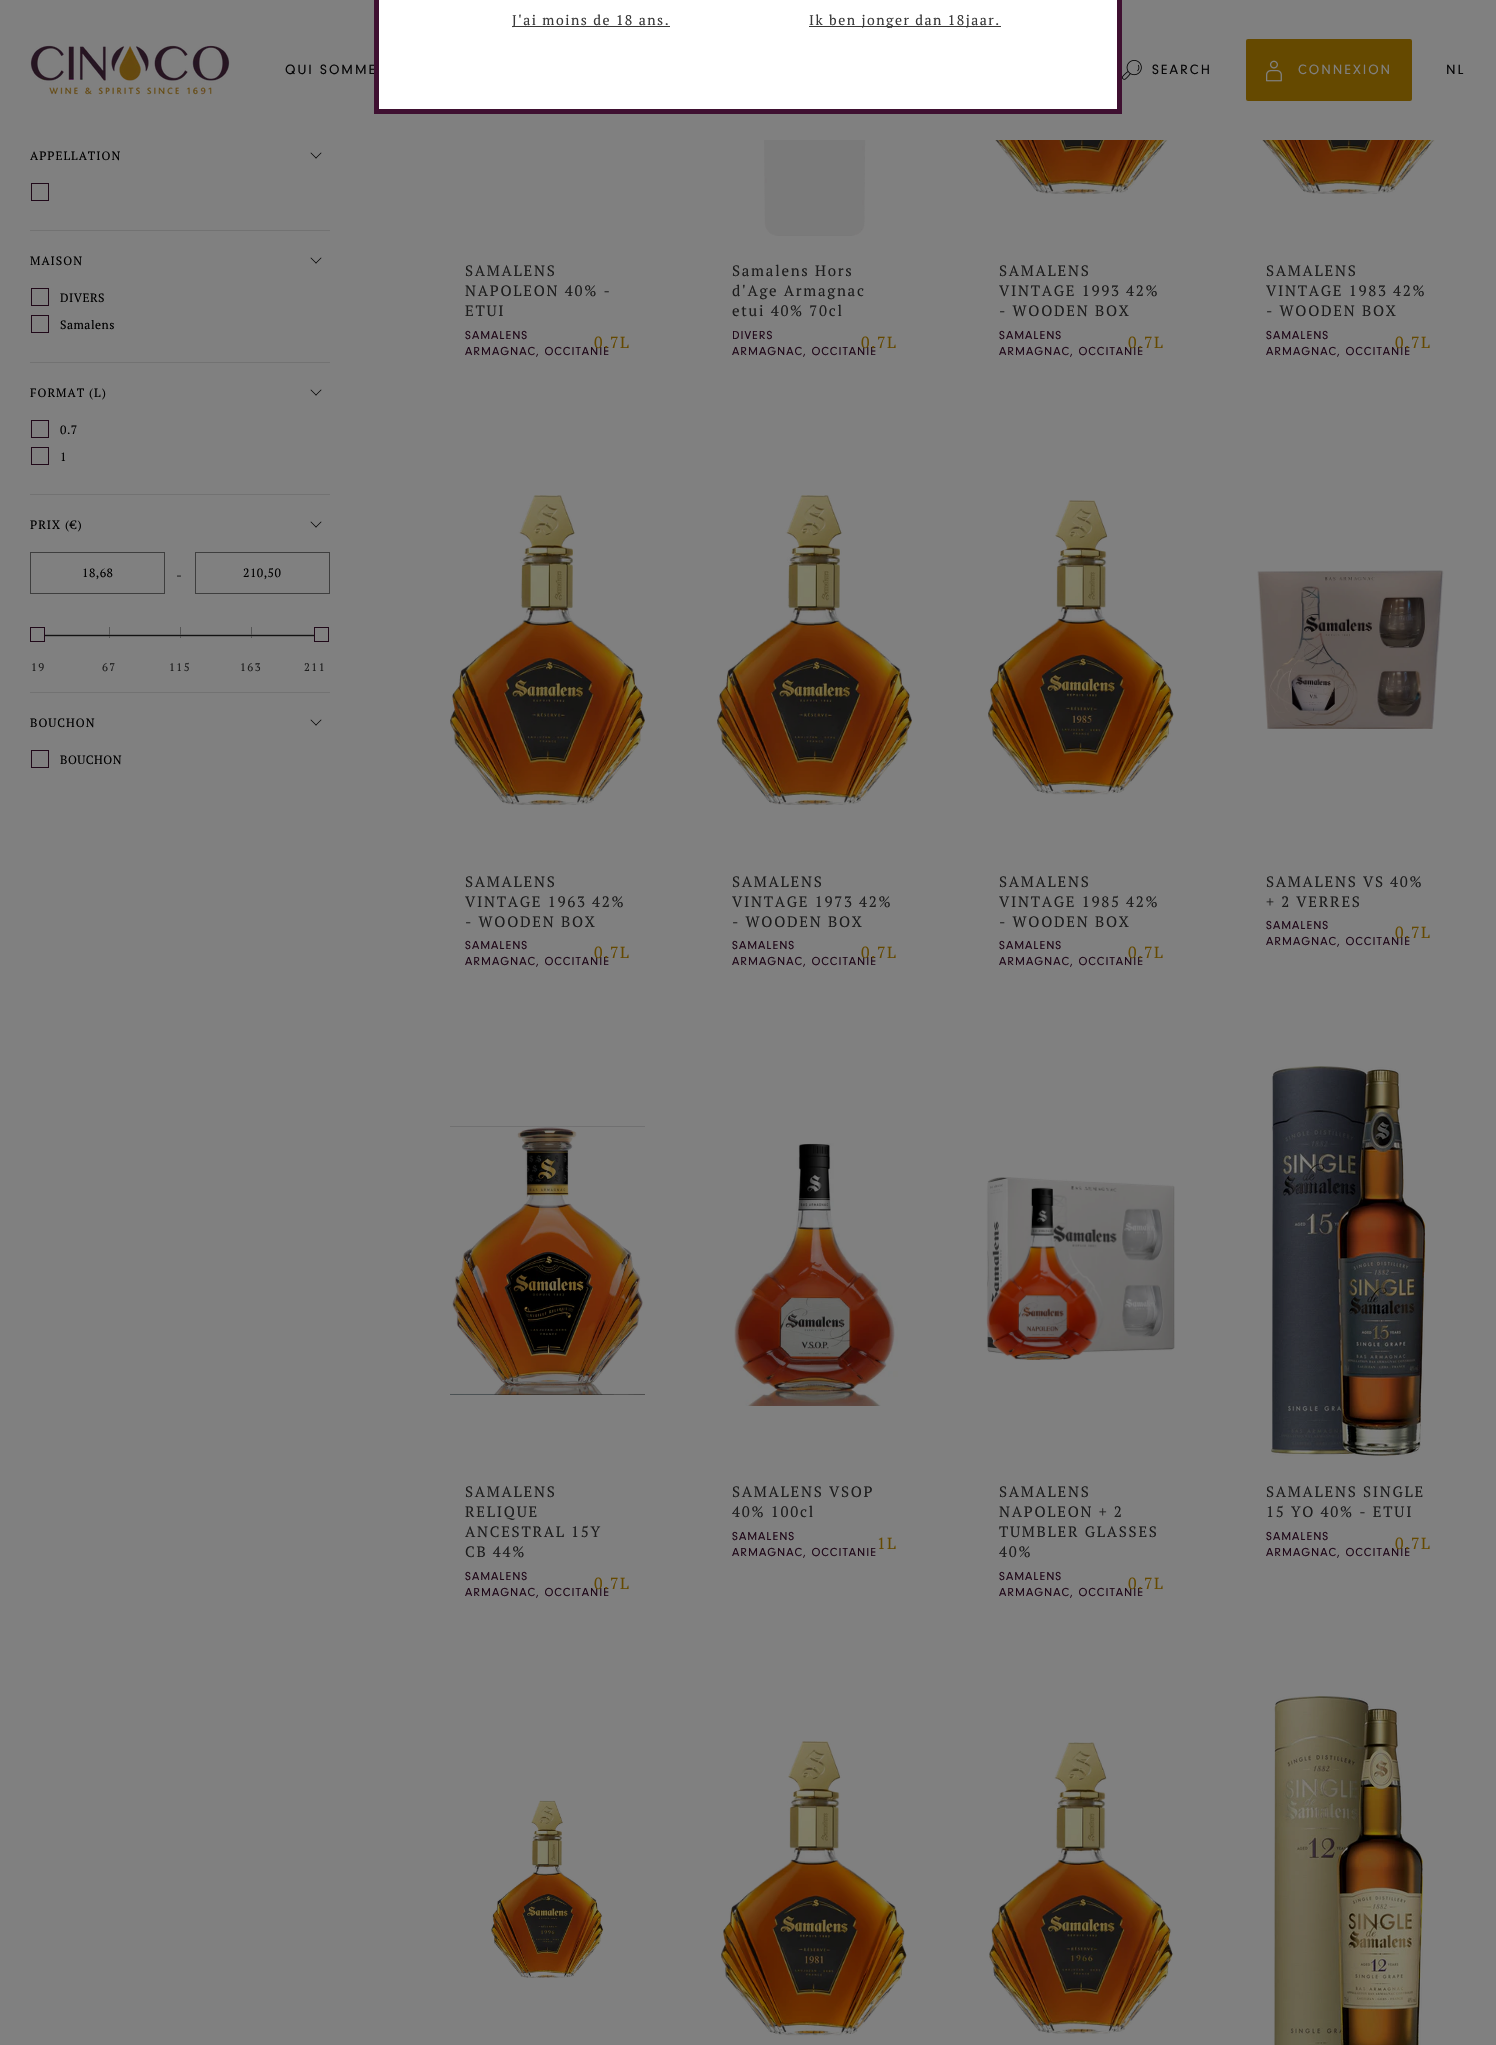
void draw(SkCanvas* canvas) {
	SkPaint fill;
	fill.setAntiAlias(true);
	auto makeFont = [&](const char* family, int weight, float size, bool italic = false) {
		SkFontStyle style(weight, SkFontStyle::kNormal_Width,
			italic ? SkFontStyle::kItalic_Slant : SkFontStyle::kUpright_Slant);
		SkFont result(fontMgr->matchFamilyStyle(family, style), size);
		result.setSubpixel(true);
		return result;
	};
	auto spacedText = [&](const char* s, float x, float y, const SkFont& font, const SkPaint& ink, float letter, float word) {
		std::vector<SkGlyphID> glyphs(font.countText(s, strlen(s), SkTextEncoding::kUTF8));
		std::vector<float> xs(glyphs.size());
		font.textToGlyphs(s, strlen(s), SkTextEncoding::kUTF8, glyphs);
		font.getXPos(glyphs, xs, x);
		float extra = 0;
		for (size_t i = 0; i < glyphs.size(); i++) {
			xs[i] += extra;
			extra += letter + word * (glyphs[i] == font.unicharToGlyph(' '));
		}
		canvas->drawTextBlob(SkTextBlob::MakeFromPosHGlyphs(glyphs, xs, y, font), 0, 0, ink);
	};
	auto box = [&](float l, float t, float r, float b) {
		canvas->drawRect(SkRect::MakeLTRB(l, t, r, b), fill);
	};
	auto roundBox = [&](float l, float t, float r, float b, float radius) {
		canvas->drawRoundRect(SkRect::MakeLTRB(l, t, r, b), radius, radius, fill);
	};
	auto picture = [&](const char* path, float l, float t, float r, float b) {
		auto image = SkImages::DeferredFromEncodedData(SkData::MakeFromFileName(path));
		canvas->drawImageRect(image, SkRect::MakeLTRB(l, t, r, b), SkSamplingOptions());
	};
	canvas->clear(0xFF808080);
	picture("image0.png", 30, 45, 230, 95);
	picture("image1.png", 1122, 60, 1142, 80);
	fill.setColor(0xFF654900);
	roundBox(1246, 39, 1412, 101, 2);
	picture("image2.png", 1266, 60, 1282, 82);
	fill.setColor(0xFF727272);
	box(30, 230, 330, 231);
	fill.setColor(0xFF000000);
	canvas->drawPath(SkPathBuilder().moveTo(321, 152.5f).lineTo(321.5f, 153).lineTo(316, 158.5f).lineTo(315.5f, 158).close().detach(), fill);
	canvas->drawPath(SkPathBuilder().moveTo(311, 152.5f).lineTo(316.5f, 158).lineTo(316, 158.5f).lineTo(310.5f, 153).close().detach(), fill);
	fill.setStyle(SkPaint::kStroke_Style);
	fill.setStrokeWidth(1);
	fill.setColor(0xFF200819);
	canvas->drawRect(SkRect::MakeLTRB(31.5f, 183.5f, 48.5f, 200.5f), fill);
	fill.setStyle(SkPaint::kFill_Style);
	fill.setColor(0xFF727272);
	box(30, 362, 330, 363);
	fill.setColor(0xFF000000);
	canvas->drawPath(SkPathBuilder().moveTo(321, 257.5f).lineTo(321.5f, 258).lineTo(316, 263.5f).lineTo(315.5f, 263).close().detach(), fill);
	canvas->drawPath(SkPathBuilder().moveTo(311, 257.5f).lineTo(316.5f, 263).lineTo(316, 263.5f).lineTo(310.5f, 258).close().detach(), fill);
	fill.setStyle(SkPaint::kStroke_Style);
	fill.setColor(0xFF200819);
	canvas->drawRect(SkRect::MakeLTRB(31.5f, 288.5f, 48.5f, 305.5f), fill);
	canvas->drawRect(SkRect::MakeLTRB(31.5f, 315.5f, 48.5f, 332.5f), fill);
	fill.setStyle(SkPaint::kFill_Style);
	fill.setColor(0xFF727272);
	box(30, 494, 330, 495);
	fill.setColor(0xFF000000);
	canvas->drawPath(SkPathBuilder().moveTo(321, 389.5f).lineTo(321.5f, 390).lineTo(316, 395.5f).lineTo(315.5f, 395).close().detach(), fill);
	canvas->drawPath(SkPathBuilder().moveTo(311, 389.5f).lineTo(316.5f, 395).lineTo(316, 395.5f).lineTo(310.5f, 390).close().detach(), fill);
	fill.setStyle(SkPaint::kStroke_Style);
	fill.setColor(0xFF200819);
	canvas->drawRect(SkRect::MakeLTRB(31.5f, 420.5f, 48.5f, 437.5f), fill);
	canvas->drawRect(SkRect::MakeLTRB(31.5f, 447.5f, 48.5f, 464.5f), fill);
	fill.setStyle(SkPaint::kFill_Style);
	fill.setColor(0xFF727272);
	box(30, 692, 330, 693);
	fill.setColor(0xFF000000);
	canvas->drawPath(SkPathBuilder().moveTo(321, 521.5f).lineTo(321.5f, 522).lineTo(316, 527.5f).lineTo(315.5f, 527).close().detach(), fill);
	canvas->drawPath(SkPathBuilder().moveTo(311, 521.5f).lineTo(316.5f, 527).lineTo(316, 527.5f).lineTo(310.5f, 522).close().detach(), fill);
	fill.setStyle(SkPaint::kStroke_Style);
	fill.setColor(0xFF3E3E3E);
	canvas->drawRect(SkRect::MakeLTRB(30.5f, 552.5f, 164.5f, 593.5f), fill);
	canvas->drawRect(SkRect::MakeLTRB(195.5f, 552.5f, 329.5f, 593.5f), fill);
	fill.setColor(0xFF6A6A6A);
	canvas->drawRect(SkRect::MakeLTRB(37.5f, 634.5f, 322.5f, 636.5f), fill);
	fill.setStyle(SkPaint::kFill_Style);
	fill.setColor(0xFF555555);
	box(109, 627, 110, 638);
	box(180, 627, 181, 638);
	box(251, 627, 252, 638);
	fill.setColor(0xFF121212);
	box(38, 635, 322, 636);
	fill.setColor(0xFF808080);
	box(37, 634, 44, 637);
	fill.setStyle(SkPaint::kStroke_Style);
	fill.setColor(0xFF200819);
	canvas->drawRect(SkRect::MakeLTRB(30.5f, 627.5f, 44.5f, 641.5f), fill);
	fill.setStyle(SkPaint::kFill_Style);
	fill.setColor(0xFF808080);
	box(315, 634, 323, 637);
	fill.setStyle(SkPaint::kStroke_Style);
	fill.setColor(0xFF200819);
	canvas->drawRect(SkRect::MakeLTRB(314.5f, 627.5f, 328.5f, 641.5f), fill);
	fill.setStyle(SkPaint::kFill_Style);
	fill.setColor(0xFF000000);
	canvas->drawPath(SkPathBuilder().moveTo(321, 719.5f).lineTo(321.5f, 720).lineTo(316, 725.5f).lineTo(315.5f, 725).close().detach(), fill);
	canvas->drawPath(SkPathBuilder().moveTo(311, 719.5f).lineTo(316.5f, 725).lineTo(316, 725.5f).lineTo(310.5f, 720).close().detach(), fill);
	fill.setStyle(SkPaint::kStroke_Style);
	fill.setColor(0xFF200819);
	canvas->drawRect(SkRect::MakeLTRB(31.5f, 750.5f, 48.5f, 767.5f), fill);
	picture("image3.png", 764, 140, 866, 236);
	picture("image4.png", 995, 140, 1168, 194);
	picture("image5.png", 1262, 140, 1435, 194);
	picture("image6.png", 450, 495, 645, 805);
	picture("image6.png", 717, 495, 912, 805);
	picture("image7.png", 988, 500, 1174, 795);
	picture("image8.png", 1257, 570, 1444, 729);
	picture("image9.png", 450, 1126, 645, 1395);
	picture("image10.png", 734, 1143, 898, 1406);
	picture("image11.png", 986, 1177, 1175, 1360);
	picture("image12.png", 1271, 1066, 1426, 1456);
	picture("image13.png", 491, 1800, 603, 1978);
	picture("image14.png", 721, 1741, 907, 2036);
	picture("image15.png", 989, 1742, 1173, 2034);
	picture("image16.png", 1274, 1696, 1423, 2045);
	auto font1 = makeFont("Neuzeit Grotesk", 400, 14);
	fill.setStyle(SkPaint::kFill_Style);
	fill.setColor(0xFF060607);
	spacedText("QUI SOMME", 285, 74, font1, fill, 2, 0);
	fill.setColor(0xFFFFFFFF);
	canvas->drawRect(SkRect::MakeLTRB(376.5f, -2.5f, 1119.5f, 111.5f), fill);
	fill.setStyle(SkPaint::kStroke_Style);
	fill.setStrokeWidth(5);
	fill.setColor(0xFF3F1031);
	canvas->drawRect(SkRect::MakeLTRB(376.5f, -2.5f, 1119.5f, 111.5f), fill);
	fill.setStyle(SkPaint::kFill_Style);
	fill.setColor(0xFF393939);
	box(809, 26, 1001, 27);
	auto font2 = makeFont("PT Serif", 400, 14);
	spacedText("Ik ben jonger dan 18jaar.", 809, 25, font2, fill, 1.5f, 0);
	box(512, 26, 670, 27);
	spacedText("J'ai moins de 18 ans.", 512, 25, font2, fill, 1.5f, 0);
	fill.setColor(0xFF060607);
	spacedText("SEARCH", 1152, 74, font1, fill, 2, 0);
	fill.setColor(0xFF808080);
	spacedText("CONNEXION", 1298, 74, font1, fill, 2, 0);
	fill.setColor(0xFF060607);
	spacedText("NL", 1446, 74, font1, fill, 2, 0);
	auto font3 = makeFont("PT Serif", 400, 12);
	fill.setColor(0xFF000000);
	spacedText("APPELLATION", 30, 160, font3, fill, 1, 0);
	spacedText("MAISON", 30, 265, font3, fill, 1, 0);
	spacedText("DIVERS", 60, 302, font3, fill, 0.5f, 0);
	spacedText("Samalens", 60, 329, font3, fill, 0.5f, 0);
	spacedText("FORMAT (L)", 30, 397, font3, fill, 1, 0);
	spacedText("0.7", 60, 434, font3, fill, 0.5f, 0);
	spacedText("1", 60, 461, font3, fill, 0.5f, 0);
	spacedText("PRIX (€)", 30, 529, font3, fill, 1, 0);
	spacedText("18,68", 82, 577, font3, fill, 0.5f, 0);
	fill.setColor(0xFF1D1D1D);
	spacedText("-", 176, 580, font2, fill, 1.5f, 0);
	fill.setColor(0xFF000000);
	spacedText("210,50", 243, 577, font3, fill, 0.5f, 0);
	auto font4 = makeFont("PT Serif", 400, 11);
	fill.setColor(0xFF1D1D1D);
	spacedText("19", 31, 671, font4, fill, 1.5f, 0);
	spacedText("67", 102, 671, font4, fill, 1.5f, 0);
	spacedText("115", 169, 671, font4, fill, 1.5f, 0);
	spacedText("163", 240, 671, font4, fill, 1.5f, 0);
	spacedText("211", 304, 671, font4, fill, 1.5f, 0);
	fill.setColor(0xFF000000);
	spacedText("BOUCHON", 30, 727, font3, fill, 1, 0);
	spacedText("BOUCHON", 60, 764, font3, fill, 0.5f, 0);
	auto font5 = makeFont("PT Serif", 400, 15);
	fill.setColor(0xFF1D1D1D);
	spacedText("SAMALENS", 465, 276, font5, fill, 1.75f, 0);
	spacedText("NAPOLEON 40% -", 465, 296, font5, fill, 1.75f, 0);
	spacedText("ETUI", 465, 316, font5, fill, 1.75f, 0);
	auto font6 = makeFont("Neuzeit Grotesk", 400, 12);
	fill.setColor(0xFF200819);
	spacedText("SAMALENS", 465, 339, font6, fill, 1, 0);
	spacedText("ARMAGNAC, OCCITANIE", 465, 355, font6, fill, 1, 0);
	auto font7 = makeFont("PT Serif", 400, 16);
	fill.setColor(0xFF654900);
	spacedText("0.7L", 594, 348, font7, fill, 1.5f, 0);
	fill.setColor(0xFF1D1D1D);
	spacedText("Samalens Hors", 732, 276, font5, fill, 1.75f, 0);
	spacedText("d'Age Armagnac", 732, 296, font5, fill, 1.75f, 0);
	spacedText("etui 40% 70cl", 732, 316, font5, fill, 1.75f, 0);
	fill.setColor(0xFF200819);
	spacedText("DIVERS", 732, 339, font6, fill, 1, 0);
	spacedText("ARMAGNAC, OCCITANIE", 732, 355, font6, fill, 1, 0);
	fill.setColor(0xFF654900);
	spacedText("0.7L", 861, 348, font7, fill, 1.5f, 0);
	fill.setColor(0xFF1D1D1D);
	spacedText("SAMALENS", 999, 276, font5, fill, 1.75f, 0);
	spacedText("VINTAGE 1993 42%", 999, 296, font5, fill, 1.75f, 0);
	spacedText("- WOODEN BOX", 999, 316, font5, fill, 1.75f, 0);
	fill.setColor(0xFF200819);
	spacedText("SAMALENS", 999, 339, font6, fill, 1, 0);
	spacedText("ARMAGNAC, OCCITANIE", 999, 355, font6, fill, 1, 0);
	fill.setColor(0xFF654900);
	spacedText("0.7L", 1128, 348, font7, fill, 1.5f, 0);
	fill.setColor(0xFF1D1D1D);
	spacedText("SAMALENS", 1266, 276, font5, fill, 1.75f, 0);
	spacedText("VINTAGE 1983 42%", 1266, 296, font5, fill, 1.75f, 0);
	spacedText("- WOODEN BOX", 1266, 316, font5, fill, 1.75f, 0);
	fill.setColor(0xFF200819);
	spacedText("SAMALENS", 1266, 339, font6, fill, 1, 0);
	spacedText("ARMAGNAC, OCCITANIE", 1266, 355, font6, fill, 1, 0);
	fill.setColor(0xFF654900);
	spacedText("0.7L", 1395, 348, font7, fill, 1.5f, 0);
	fill.setColor(0xFF1D1D1D);
	spacedText("SAMALENS", 465, 887, font5, fill, 1.75f, 0);
	spacedText("VINTAGE 1963 42%", 465, 907, font5, fill, 1.75f, 0);
	spacedText("- WOODEN BOX", 465, 927, font5, fill, 1.75f, 0);
	fill.setColor(0xFF200819);
	spacedText("SAMALENS", 465, 949, font6, fill, 1, 0);
	spacedText("ARMAGNAC, OCCITANIE", 465, 965, font6, fill, 1, 0);
	fill.setColor(0xFF654900);
	spacedText("0.7L", 594, 958, font7, fill, 1.5f, 0);
	fill.setColor(0xFF1D1D1D);
	spacedText("SAMALENS", 732, 887, font5, fill, 1.75f, 0);
	spacedText("VINTAGE 1973 42%", 732, 907, font5, fill, 1.75f, 0);
	spacedText("- WOODEN BOX", 732, 927, font5, fill, 1.75f, 0);
	fill.setColor(0xFF200819);
	spacedText("SAMALENS", 732, 949, font6, fill, 1, 0);
	spacedText("ARMAGNAC, OCCITANIE", 732, 965, font6, fill, 1, 0);
	fill.setColor(0xFF654900);
	spacedText("0.7L", 861, 958, font7, fill, 1.5f, 0);
	fill.setColor(0xFF1D1D1D);
	spacedText("SAMALENS", 999, 887, font5, fill, 1.75f, 0);
	spacedText("VINTAGE 1985 42%", 999, 907, font5, fill, 1.75f, 0);
	spacedText("- WOODEN BOX", 999, 927, font5, fill, 1.75f, 0);
	fill.setColor(0xFF200819);
	spacedText("SAMALENS", 999, 949, font6, fill, 1, 0);
	spacedText("ARMAGNAC, OCCITANIE", 999, 965, font6, fill, 1, 0);
	fill.setColor(0xFF654900);
	spacedText("0.7L", 1128, 958, font7, fill, 1.5f, 0);
	fill.setColor(0xFF1D1D1D);
	spacedText("SAMALENS VS 40%", 1266, 887, font5, fill, 1.75f, 0);
	spacedText("+ 2 VERRES", 1266, 907, font5, fill, 1.75f, 0);
	fill.setColor(0xFF200819);
	spacedText("SAMALENS", 1266, 929, font6, fill, 1, 0);
	spacedText("ARMAGNAC, OCCITANIE", 1266, 945, font6, fill, 1, 0);
	fill.setColor(0xFF654900);
	spacedText("0.7L", 1395, 938, font7, fill, 1.5f, 0);
	fill.setColor(0xFF1D1D1D);
	spacedText("SAMALENS", 465, 1497, font5, fill, 1.75f, 0);
	spacedText("RELIQUE", 465, 1517, font5, fill, 1.75f, 0);
	spacedText("ANCESTRAL 15Y", 465, 1537, font5, fill, 1.75f, 0);
	spacedText("CB 44%", 465, 1557, font5, fill, 1.75f, 0);
	fill.setColor(0xFF200819);
	spacedText("SAMALENS", 465, 1580, font6, fill, 1, 0);
	spacedText("ARMAGNAC, OCCITANIE", 465, 1596, font6, fill, 1, 0);
	fill.setColor(0xFF654900);
	spacedText("0.7L", 594, 1589, font7, fill, 1.5f, 0);
	fill.setColor(0xFF1D1D1D);
	spacedText("SAMALENS VSOP", 732, 1497, font5, fill, 1.75f, 0);
	spacedText("40% 100cl", 732, 1517, font5, fill, 1.75f, 0);
	fill.setColor(0xFF200819);
	spacedText("SAMALENS", 732, 1540, font6, fill, 1, 0);
	spacedText("ARMAGNAC, OCCITANIE", 732, 1556, font6, fill, 1, 0);
	fill.setColor(0xFF654900);
	spacedText("1L", 877, 1549, font7, fill, 1.5f, 0);
	fill.setColor(0xFF1D1D1D);
	spacedText("SAMALENS", 999, 1497, font5, fill, 1.75f, 0);
	spacedText("NAPOLEON + 2", 999, 1517, font5, fill, 1.75f, 0);
	spacedText("TUMBLER GLASSES", 999, 1537, font5, fill, 1.75f, 0);
	spacedText("40%", 999, 1557, font5, fill, 1.75f, 0);
	fill.setColor(0xFF200819);
	spacedText("SAMALENS", 999, 1580, font6, fill, 1, 0);
	spacedText("ARMAGNAC, OCCITANIE", 999, 1596, font6, fill, 1, 0);
	fill.setColor(0xFF654900);
	spacedText("0.7L", 1128, 1589, font7, fill, 1.5f, 0);
	fill.setColor(0xFF1D1D1D);
	spacedText("SAMALENS SINGLE", 1266, 1497, font5, fill, 1.75f, 0);
	spacedText("15 YO 40% - ETUI", 1266, 1517, font5, fill, 1.75f, 0);
	fill.setColor(0xFF200819);
	spacedText("SAMALENS", 1266, 1540, font6, fill, 1, 0);
	spacedText("ARMAGNAC, OCCITANIE", 1266, 1556, font6, fill, 1, 0);
	fill.setColor(0xFF654900);
	spacedText("0.7L", 1395, 1549, font7, fill, 1.5f, 0);
}
